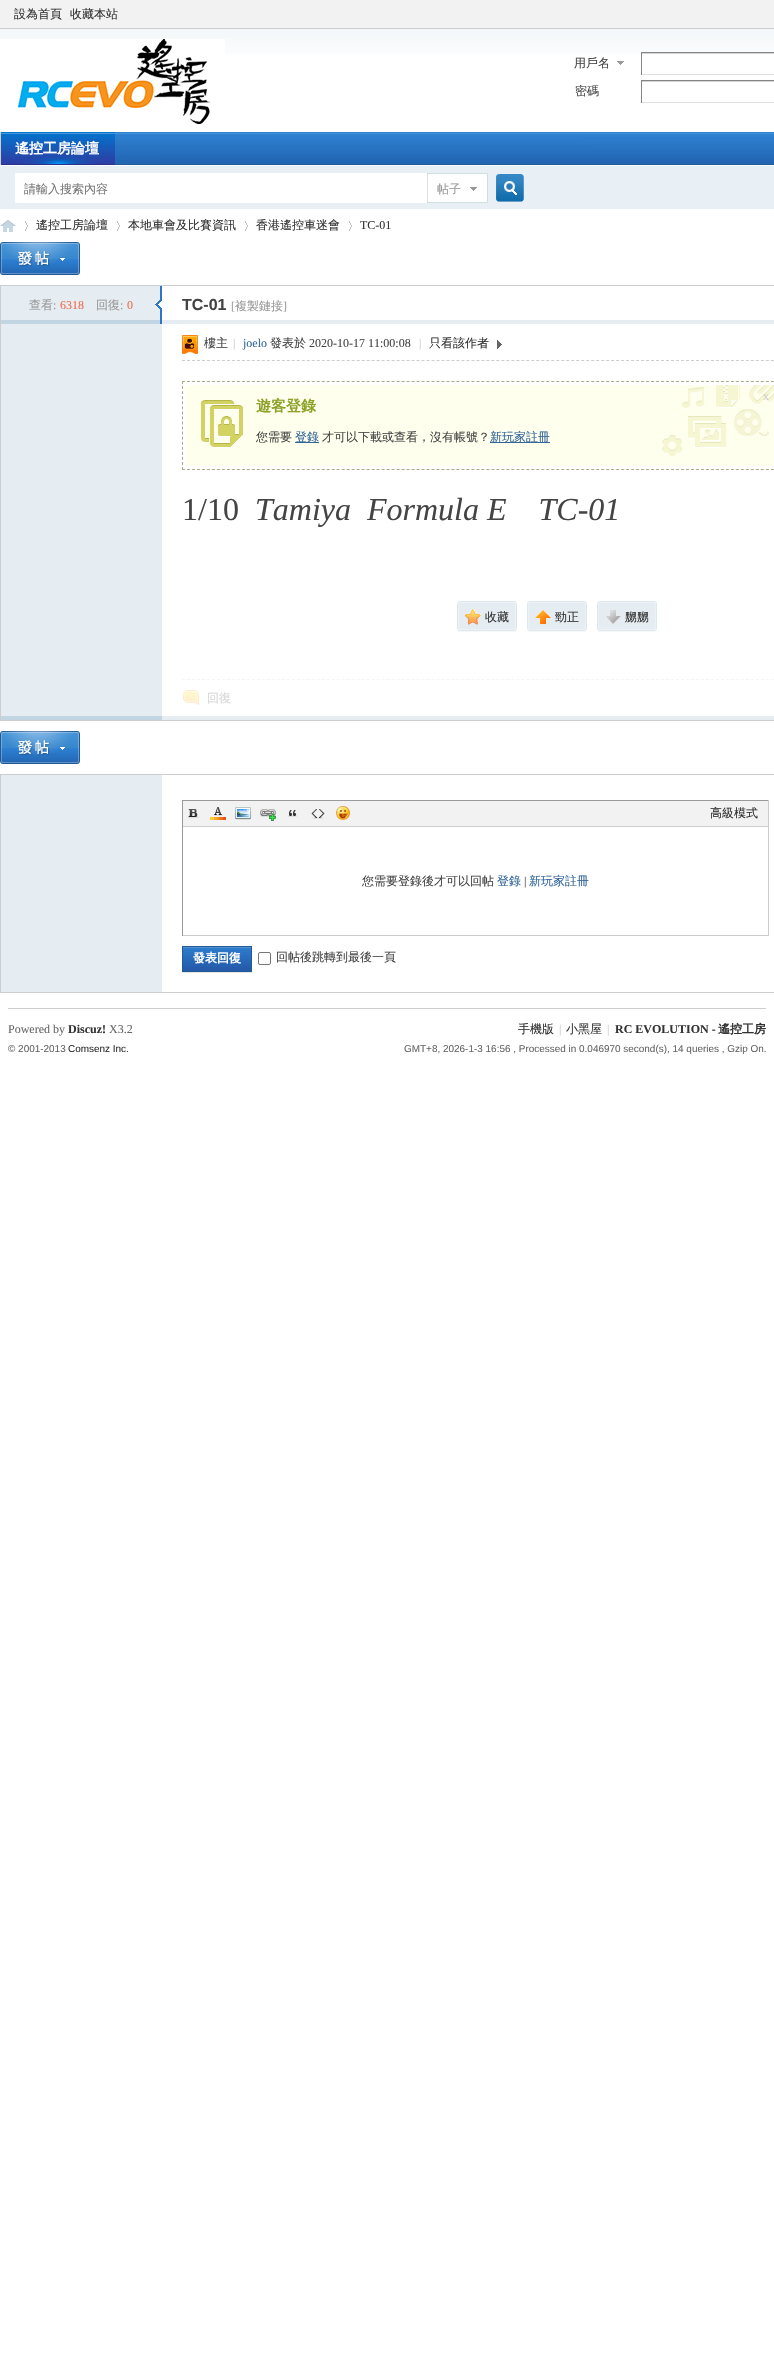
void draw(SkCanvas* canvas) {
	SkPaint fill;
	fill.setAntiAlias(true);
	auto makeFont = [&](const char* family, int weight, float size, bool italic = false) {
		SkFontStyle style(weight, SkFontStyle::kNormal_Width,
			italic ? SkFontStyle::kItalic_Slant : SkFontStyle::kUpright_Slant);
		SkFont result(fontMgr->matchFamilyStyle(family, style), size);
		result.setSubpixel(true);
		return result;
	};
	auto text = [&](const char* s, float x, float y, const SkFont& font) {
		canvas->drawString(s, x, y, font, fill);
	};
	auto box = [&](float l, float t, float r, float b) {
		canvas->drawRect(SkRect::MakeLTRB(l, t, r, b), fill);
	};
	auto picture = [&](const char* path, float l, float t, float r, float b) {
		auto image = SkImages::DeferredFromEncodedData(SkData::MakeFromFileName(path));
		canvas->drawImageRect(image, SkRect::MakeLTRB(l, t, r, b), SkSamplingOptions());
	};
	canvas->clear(0xFFFFFFFF);
	picture("image0.png", 0, 29, 774, 54);
	fill.setColor(0xFFF2F2F2);
	box(0, 0, 774, 28);
	fill.setColor(0xFFCDCDCD);
	box(0, 28, 774, 29);
	picture("image1.png", 0, 39, 225, 124);
	picture("image2.png", 617, 61, 624, 65);
	fill.setColor(0xFFD4D4D4);
	box(641, 53, 774, 54);
	fill.setColor(0xFF848484);
	box(641, 52, 774, 53);
	fill.setColor(0xFFE0E0E0);
	box(641, 74, 774, 75);
	fill.setColor(0xFF848484);
	box(641, 52, 642, 75);
	fill.setColor(0xFFD4D4D4);
	box(641, 81, 774, 82);
	fill.setColor(0xFF848484);
	box(641, 80, 774, 81);
	fill.setColor(0xFFE0E0E0);
	box(641, 102, 774, 103);
	fill.setColor(0xFF848484);
	box(641, 80, 642, 103);
	picture("image3.png", 115, 132, 774, 165);
	fill.setColor(0xFFCDCDCD);
	box(0, 132, 1, 165);
	picture("image4.png", 1, 132, 115, 165);
	fill.setColor(0xFFE8EFF5);
	box(0, 166, 774, 209);
	fill.setColor(0xFFFFFFFF);
	box(15, 173, 427, 203);
	picture("image5.png", 496, 174, 524, 202);
	picture("image6.png", 427, 173, 488, 203);
	picture("image7.png", 0, 220, 16, 232);
	picture("image8.png", 25, 221, 28, 231);
	picture("image8.png", 117, 221, 120, 231);
	picture("image8.png", 245, 221, 248, 231);
	picture("image8.png", 349, 221, 352, 231);
	picture("image9.png", 0, 242, 80, 275);
	fill.setStyle(SkPaint::kStroke_Style);
	fill.setStrokeWidth(1);
	fill.setColor(0xFFCDCDCD);
	canvas->drawRect(SkRect::MakeLTRB(0.5f, 285.5f, 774.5f, 720.5f), fill);
	fill.setStyle(SkPaint::kFill_Style);
	fill.setColor(0xFFE5EDF2);
	box(1, 286, 160, 320);
	fill.setColor(0xFFC2D5E3);
	box(1, 320, 162, 324);
	picture("image10.png", 155, 286, 162, 324);
	fill.setColor(0xFFE5EDF2);
	box(162, 320, 774, 324);
	box(1, 324, 162, 716);
	fill.setStyle(SkPaint::kStroke_Style);
	fill.setColor(0xFFCDCDCD);
	fill.setPathEffect(SkDashPathEffect::Make({{3, 1.99f}}, 0));
	canvas->drawPath(SkPathBuilder().moveTo(182, 360.5f).lineTo(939, 360.5f).detach(), fill);
	fill.setPathEffect(nullptr);
	picture("image11.png", 182, 335, 198, 354);
	picture("image12.png", 497, 340, 502, 349);
	fill.setStyle(SkPaint::kFill_Style);
	fill.setColor(0xFFFFFFEE);
	box(182, 381, 774, 470);
	picture("image13.png", 662, 385, 774, 457);
	fill.setStyle(SkPaint::kStroke_Style);
	fill.setColor(0xFFAAAA92);
	fill.setPathEffect(SkDashPathEffect::Make({{3, 1.99f}}, 0));
	canvas->drawPath(SkPathBuilder().moveTo(182, 381.5f).lineTo(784, 381.5f).detach(), fill);
	fill.setPathEffect(nullptr);
	fill.setPathEffect(SkDashPathEffect::Make({{3, 1.99f}}, 0));
	canvas->drawPath(SkPathBuilder().moveTo(182, 469.5f).lineTo(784, 469.5f).detach(), fill);
	fill.setPathEffect(nullptr);
	fill.setPathEffect(SkDashPathEffect::Make({{3, 2.06f}}, 0));
	canvas->drawPath(SkPathBuilder().moveTo(182.5f, 381).lineTo(182.5f, 470).detach(), fill);
	fill.setPathEffect(nullptr);
	picture("image14.png", 201, 400, 243, 448);
	fill.setStrokeWidth(3);
	fill.setColor(0xFFFFFFFF);
	canvas->drawRect(SkRect::MakeLTRB(184.5f, 383.5f, 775.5f, 467.5f), fill);
	fill.setStyle(SkPaint::kFill_Style);
	fill.setColor(0xFF336699);
	box(295, 442, 319, 443);
	box(490, 442, 550, 443);
	picture("image15.png", 457, 601, 483, 632);
	picture("image16.png", 483, 601, 517, 632);
	picture("image17.png", 465, 609, 481, 625);
	picture("image15.png", 527, 601, 553, 632);
	picture("image16.png", 553, 601, 587, 632);
	picture("image18.png", 535, 610, 551, 624);
	picture("image15.png", 597, 601, 623, 632);
	picture("image16.png", 623, 601, 657, 632);
	picture("image19.png", 605, 610, 621, 624);
	fill.setStyle(SkPaint::kStroke_Style);
	fill.setStrokeWidth(1);
	fill.setColor(0xFFF5F5F5);
	fill.setPathEffect(SkDashPathEffect::Make({{3, 1.99f}}, 0));
	canvas->drawPath(SkPathBuilder().moveTo(182, 679.5f).lineTo(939, 679.5f).detach(), fill);
	fill.setPathEffect(nullptr);
	picture("image20.png", 183, 690, 199, 705);
	fill.setStyle(SkPaint::kFill_Style);
	fill.setColor(0xFFC2D5E3);
	box(1, 716, 162, 720);
	fill.setColor(0xFFE5EDF2);
	box(162, 716, 774, 720);
	picture("image9.png", 0, 731, 80, 764);
	fill.setStyle(SkPaint::kStroke_Style);
	fill.setColor(0xFFCDCDCD);
	canvas->drawRect(SkRect::MakeLTRB(0.5f, 774.5f, 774.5f, 992.5f), fill);
	fill.setStyle(SkPaint::kFill_Style);
	fill.setColor(0xFFC2D5E3);
	box(161, 774, 162, 775);
	fill.setColor(0xFFE5EDF2);
	box(1, 775, 162, 992);
	fill.setColor(0xFF999999);
	box(182, 800, 769, 801);
	fill.setColor(0xFFCCCCCC);
	box(768, 800, 769, 936);
	box(182, 935, 769, 936);
	fill.setColor(0xFF999999);
	box(182, 800, 183, 936);
	fill.setColor(0xFFF2F2F2);
	box(183, 801, 768, 826);
	fill.setColor(0xFFCDCDCD);
	box(183, 826, 768, 827);
	picture("image21.png", 188, 809, 199, 818);
	picture("image22.png", 210, 807, 226, 820);
	picture("image23.png", 235, 807, 251, 820);
	picture("image24.png", 260, 809, 277, 821);
	picture("image25.png", 288, 810, 297, 817);
	picture("image26.png", 311, 809, 325, 819);
	picture("image27.png", 335, 806, 350, 820);
	fill.setColor(0xFFE5E5E5);
	box(182, 972, 252, 973);
	picture("image28.png", 183, 947, 251, 971);
	fill.setStyle(SkPaint::kStroke_Style);
	fill.setColor(0xFF235994);
	canvas->drawRect(SkRect::MakeLTRB(182.5f, 946.5f, 251.5f, 971.5f), fill);
	fill.setColor(0xFF767676);
	canvas->drawRoundRect(SkRect::MakeLTRB(258.5f, 952.5f, 270.5f, 964.5f), 1.5f, 1.5f, fill);
	fill.setStyle(SkPaint::kFill_Style);
	fill.setColor(0xFFCDCDCD);
	box(8, 1008, 766, 1009);
	auto font1 = makeFont("WenQuanYi Zen Hei", 500, 12);
	fill.setColor(0xFF333333);
	text("設為首頁", 14, 18, font1);
	text("收藏本站", 70, 18, font1);
	fill.setColor(0xFF444444);
	text("用戶名", 574, 67, font1);
	text("密碼", 575, 95, font1);
	auto font2 = makeFont("WenQuanYi Zen Hei", 700, 14);
	fill.setColor(0xFFFFFFFF);
	text("遙控工房論壇", 15, 153, font2);
	fill.setColor(0xFF757575);
	text("請輸入搜索內容", 24, 193, font1);
	fill.setColor(0xFF999999);
	text("帖子", 437, 193, font1);
	fill.setColor(0xFF333333);
	text("遙控工房論壇", 36, 229, font1);
	text("本地車會及比賽資訊", 128, 229, font1);
	text("香港遙控車迷會", 256, 229, font1);
	auto font3 = makeFont("Liberation Serif", 400, 12);
	text("TC-01", 360, 229, font3);
	fill.setColor(0xFF999999);
	text("查看", 29, 309, font1);
	text(":", 53, 309, font3);
	fill.setColor(0xFFF26C4F);
	text("6318", 60, 309, font3);
	fill.setColor(0xFF999999);
	text("回復", 96, 309, font1);
	text(":", 120, 309, font3);
	fill.setColor(0xFFF26C4F);
	text("0", 127, 309, font3);
	auto font4 = makeFont("Liberation Sans", 700, 16);
	fill.setColor(0xFF444444);
	text("TC-01", 182, 310, font4);
	fill.setColor(0xFF999999);
	text("[", 231, 310, font3);
	text("複製鏈接", 235, 310, font1);
	text("]", 283, 310, font3);
	fill.setColor(0xFF444444);
	text("樓主", 204, 347, font1);
	fill.setColor(0xFFCCCCCC);
	text("|", 233, 347, font3);
	fill.setColor(0xFF336699);
	text("joelo", 243, 347, font3);
	fill.setColor(0xFF444444);
	text("發表於", 270, 347, font1);
	text("2020-10-17 11:00:08", 309, 347, font3);
	fill.setColor(0xFFCCCCCC);
	text("|", 419, 347, font3);
	fill.setColor(0xFF333333);
	text("只看該作者", 429, 347, font1);
	fill.setColor(0xFFCCCCCC);
	text("x", 763, 400, font3);
	auto font5 = makeFont("WenQuanYi Zen Hei", 700, 15);
	fill.setColor(0xFF8CA226);
	text("遊客登錄", 256, 411, font5);
	fill.setColor(0xFF444444);
	text("您需要", 256, 441, font1);
	fill.setColor(0xFF336699);
	text("登錄", 295, 441, font1);
	fill.setColor(0xFF444444);
	text("才可以下載或查看，沒有帳號？", 322, 441, font1);
	fill.setColor(0xFF336699);
	text("新玩家註冊", 490, 441, font1);
	auto font6 = makeFont("Liberation Serif", 400, 32);
	fill.setColor(0xFF444444);
	text("1/10", 182, 520, font6);
	auto font7 = makeFont("Liberation Serif", 400, 32, true);
	text("Tamiya  Formula E    TC-01", 255, 520, font7);
	fill.setColor(0xFF333333);
	text("收藏", 485, 621, font1);
	text("勁正", 555, 621, font1);
	text("嬲嬲", 625, 621, font1);
	fill.setColor(0xFFD6D6D6);
	text("回復", 207, 702, font1);
	fill.setColor(0xFF333333);
	text("高級模式", 710, 817, font1);
	fill.setColor(0xFF444444);
	text("您需要登錄後才可以回帖", 362, 885, font1);
	fill.setColor(0xFF336699);
	text("登錄", 497, 885, font1);
	fill.setColor(0xFF444444);
	text("|", 524, 885, font3);
	fill.setColor(0xFF336699);
	text("新玩家註冊", 529, 885, font1);
	auto font8 = makeFont("WenQuanYi Zen Hei", 700, 12);
	fill.setColor(0xFFFFFFFF);
	text("發表回復", 193, 962, font8);
	fill.setColor(0xFF444444);
	text("回帖後跳轉到最後一頁", 276, 961, font1);
	fill.setColor(0xFF666666);
	text("Powered by", 8, 1033, font3);
	auto font9 = makeFont("Liberation Serif", 700, 12);
	fill.setColor(0xFF333333);
	text("Discuz!", 68, 1033, font9);
	fill.setColor(0xFF666666);
	text("X3.2", 109, 1033, font3);
	auto font10 = makeFont("Liberation Sans", 400, 9.95f);
	text("© 2001-2013", 8, 1052, font10);
	fill.setColor(0xFF333333);
	text("Comsenz Inc.", 68, 1052, font10);
	text("手機版", 518, 1033, font1);
	fill.setColor(0xFFCCCCCC);
	text("|", 559, 1033, font3);
	fill.setColor(0xFF333333);
	text("小黑屋", 566, 1033, font1);
	fill.setColor(0xFFCCCCCC);
	text("|", 607, 1033, font3);
	fill.setColor(0xFF333333);
	text("RC EVOLUTION -", 615, 1033, font9);
	text("遙控工房", 718, 1033, font8);
	fill.setColor(0xFF666666);
	text("GMT+8, 2026-1-3 16:56 , Processed in 0.046970 second(s), 14 queries , Gzip On.", 404, 1052, font10);
}
